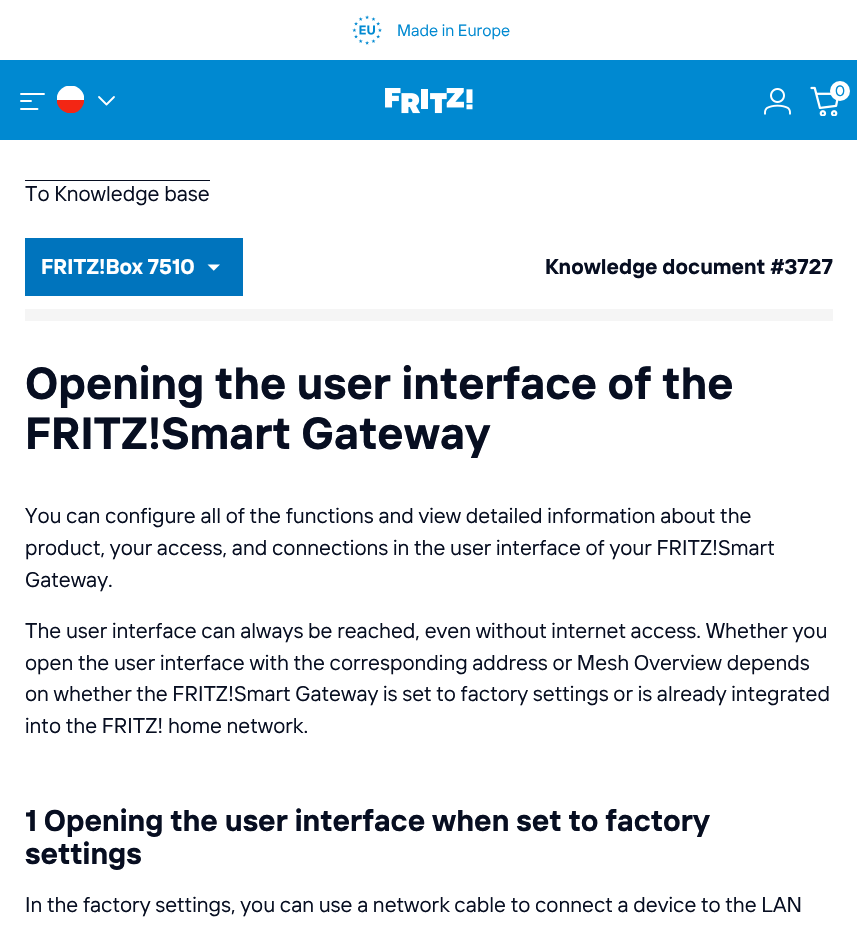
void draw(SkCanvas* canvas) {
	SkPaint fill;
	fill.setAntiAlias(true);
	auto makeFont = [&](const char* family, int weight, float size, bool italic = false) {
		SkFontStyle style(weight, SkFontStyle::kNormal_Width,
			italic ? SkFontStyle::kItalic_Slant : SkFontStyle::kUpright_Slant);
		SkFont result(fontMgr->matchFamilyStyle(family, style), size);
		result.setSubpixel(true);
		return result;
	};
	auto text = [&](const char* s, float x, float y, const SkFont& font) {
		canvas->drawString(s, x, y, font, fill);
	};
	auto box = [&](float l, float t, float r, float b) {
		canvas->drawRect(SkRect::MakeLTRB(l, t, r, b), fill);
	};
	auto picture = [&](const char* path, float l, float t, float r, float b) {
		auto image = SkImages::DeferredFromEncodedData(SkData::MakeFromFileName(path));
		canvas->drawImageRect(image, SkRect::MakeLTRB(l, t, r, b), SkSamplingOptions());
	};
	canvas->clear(0xFFFFFFFF);
	picture("image0.png", 352, 15, 382, 45);
	fill.setColor(0xFF0089D1);
	box(0, 60, 857, 140);
	fill.setStyle(SkPaint::kStroke_Style);
	fill.setStrokeWidth(1.9f);
	fill.setStrokeCap(SkPaint::kRound_Cap);
	fill.setColor(0xFFFFFFFF);
	canvas->drawPath(SkPathBuilder().moveTo(21, 94).lineTo(44, 94).moveTo(21, 101).lineTo(31, 101).moveTo(21, 109).lineTo(37.5f, 109).detach(), fill);
	canvas->save();
	canvas->clipRect(SkRect::MakeLTRB(57, 86, 84, 113));
	fill.setStyle(SkPaint::kFill_Style);
	fill.setColor(0xFFF32614);
	canvas->drawPath(SkPathBuilder().moveTo(84.5f, 98).lineTo(56.5f, 98).cubicTo(55.5f, 111.5f, 72.5f, 119, 81, 108.5f).cubicTo(83.5f, 105.5f, 84.5f, 101.5f, 84.5f, 98).close().detach(), fill);
	fill.setColor(0xFFFFFFFF);
	canvas->drawPath(SkPathBuilder().moveTo(70.5f, 85.5f).cubicTo(78.5f, 85.5f, 84.5f, 92, 84.5f, 100).lineTo(56.5f, 100).cubicTo(56.5f, 92, 62.5f, 85.5f, 70.5f, 85.5f).close().detach(), fill);
	canvas->restore();
	fill.setStyle(SkPaint::kStroke_Style);
	fill.setStrokeWidth(1.8f);
	fill.setStrokeJoin(SkPaint::kRound_Join);
	canvas->drawPath(SkPathBuilder().moveTo(99, 97).lineTo(106.5f, 104.5f).lineTo(114, 97).detach(), fill);
	picture("image1.png", 385, 88, 473, 114);
	picture("image2.png", 764, 88, 791, 115);
	picture("image3.png", 810, 86, 839, 116);
	fill.setStyle(SkPaint::kFill_Style);
	canvas->drawCircle(840, 91, 10, fill);
	fill.setColor(0xFF070E21);
	box(25, 180, 210, 181);
	fill.setColor(0xFFF5F5F5);
	box(25, 309, 833, 321);
	fill.setColor(0xFF0074BD);
	box(25, 238, 243, 296);
	picture("image4.png", 207, 264, 220, 271);
	auto font1 = makeFont("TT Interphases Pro", 400, 16.25f);
	fill.setColor(0xFF0089D1);
	text("Made in Europe", 397, 36, font1);
	auto font2 = makeFont("TT Interphases Pro", 400, 15);
	text("0", 835, 96, font2);
	auto font3 = makeFont("TT Interphases Pro", 400, 21.25f);
	fill.setColor(0xFF070E21);
	text("To Knowledge base", 25, 201, font3);
	auto font4 = makeFont("TT Interphases Pro", 700, 21.25f);
	fill.setColor(0xFFFFFFFF);
	text("FRITZ!Box 7510", 41, 274, font4);
	fill.setColor(0xFF070E21);
	text("Knowledge document #3727", 545, 274, font4);
	auto font5 = makeFont("TT Interphases Pro", 700, 45);
	text("Opening the user interface of the", 25, 399, font5);
	text("FRITZ!Smart Gateway", 25, 449, font5);
	text("You can configure all of the functions and view detailed information about the", 25, 523, font3);
	text("product, your access, and connections in the user interface of your FRITZ!Smart", 25, 555, font3);
	text("Gateway.", 25, 587, font3);
	text("The user interface can always be reached, even without internet access. Whether you", 25, 638, font3);
	text("open the user interface with the corresponding address or Mesh Overview depends", 25, 670, font3);
	text("on whether the FRITZ!Smart Gateway is set to factory settings or is already integrated", 25, 701, font3);
	text("into the FRITZ! home network.", 25, 733, font3);
	auto font6 = makeFont("TT Interphases Pro", 700, 30);
	text("1 Opening the user interface when set to factory", 25, 831, font6);
	text("settings", 25, 864, font6);
	text("In the factory settings, you can use a network cable to connect a device to the LAN", 25, 912, font3);
}
